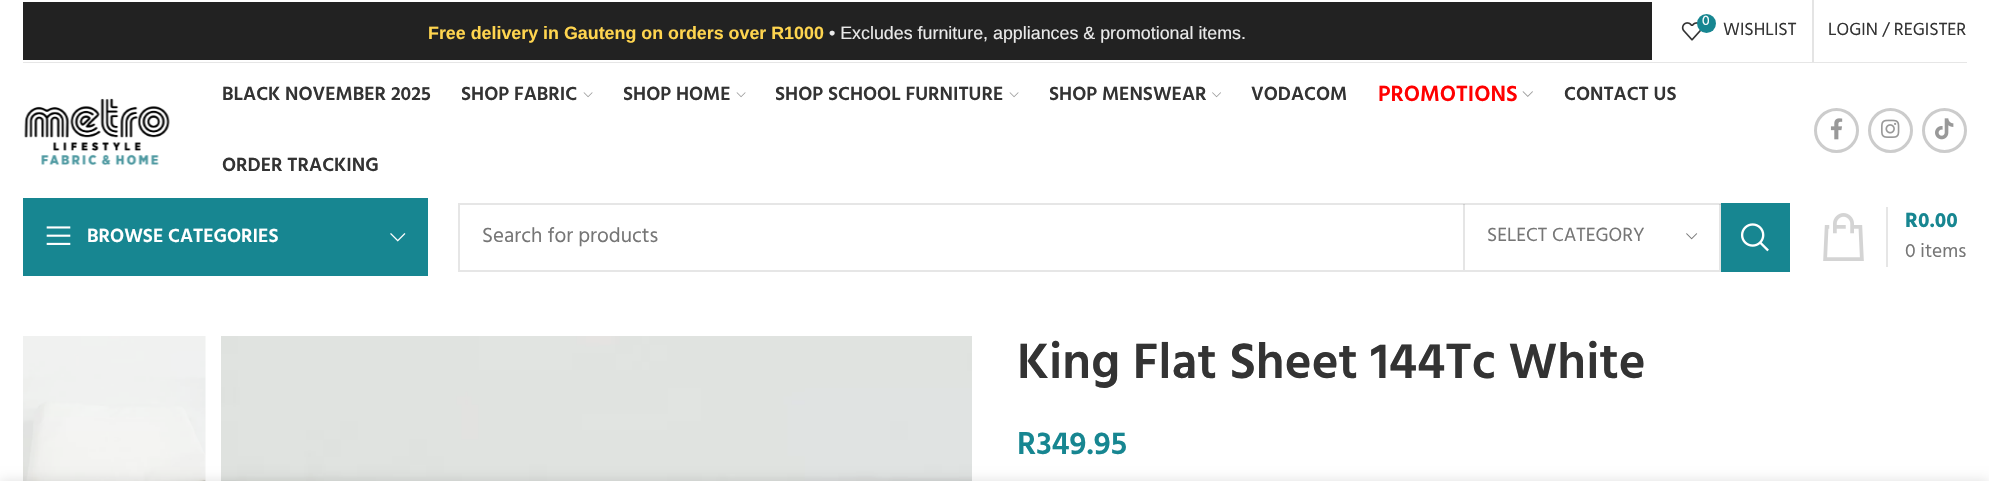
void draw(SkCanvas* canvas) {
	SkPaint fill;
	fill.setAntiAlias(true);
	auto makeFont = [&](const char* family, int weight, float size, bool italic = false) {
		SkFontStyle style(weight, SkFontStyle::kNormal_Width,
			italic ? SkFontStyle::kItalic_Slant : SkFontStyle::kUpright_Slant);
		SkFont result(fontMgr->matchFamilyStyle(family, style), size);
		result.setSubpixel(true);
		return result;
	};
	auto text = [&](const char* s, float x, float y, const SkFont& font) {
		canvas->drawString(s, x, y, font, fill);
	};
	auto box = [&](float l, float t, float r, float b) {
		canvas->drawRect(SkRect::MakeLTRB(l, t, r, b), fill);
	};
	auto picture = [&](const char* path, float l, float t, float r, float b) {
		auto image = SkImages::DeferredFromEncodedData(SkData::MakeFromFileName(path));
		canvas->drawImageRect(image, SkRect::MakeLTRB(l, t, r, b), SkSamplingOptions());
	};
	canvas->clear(0xFFFFFFFF);
	fill.setColor(0xFFE6E6E6);
	box(23, 62, 1967, 63);
	fill.setColor(0xFF222222);
	box(23, 2, 1652, 60);
	picture("image0.png", 1681, 22, 1701, 41);
	fill.setColor(0xFF178691);
	canvas->drawCircle(1706.5f, 23.5f, 9.5f, fill);
	fill.setColor(0xFFE4E4E4);
	box(1812, 0, 1814, 62);
	picture("image1.png", 24, 98, 170, 165);
	picture("image2.png", 583, 92, 593, 98);
	picture("image2.png", 736, 92, 746, 98);
	picture("image2.png", 1009, 92, 1019, 98);
	picture("image3.png", 1212, 92, 1221, 98);
	picture("image4.png", 1522, 91, 1533, 97);
	fill.setStyle(SkPaint::kStroke_Style);
	fill.setStrokeWidth(3);
	fill.setColor(0xFFCCCCCC);
	canvas->drawCircle(1836.5f, 130.5f, 21, fill);
	picture("image5.png", 1830, 118, 1843, 140);
	canvas->drawCircle(1890.5f, 130.5f, 21, fill);
	picture("image6.png", 1881, 119, 1900, 138);
	canvas->drawCircle(1944.5f, 130.5f, 21, fill);
	picture("image7.png", 1935, 118, 1954, 140);
	fill.setStyle(SkPaint::kFill_Style);
	fill.setColor(0xFF178691);
	box(23, 198, 428, 276);
	picture("image8.png", 46, 226, 71, 245);
	picture("image9.png", 390, 233, 406, 242);
	fill.setStyle(SkPaint::kStroke_Style);
	fill.setStrokeWidth(2);
	fill.setColor(0xFFE6E6E6);
	canvas->drawRect(SkRect::MakeLTRB(459, 204, 1789, 271), fill);
	fill.setStyle(SkPaint::kFill_Style);
	fill.setColor(0x1A000000);
	box(1719, 204, 1721, 270);
	box(1463, 204, 1465, 270);
	picture("image10.png", 1686, 233, 1698, 240);
	fill.setColor(0xFF178691);
	box(1721, 203, 1790, 272);
	picture("image11.png", 1741, 223, 1769, 252);
	picture("image12.png", 1823, 213, 1864, 261);
	fill.setColor(0xFFE6E6E6);
	box(1886, 207, 1888, 267);
	picture("image13.png", 23, 336, 206, 481);
	picture("image14.png", 221, 336, 972, 481);
	fill.setColor(0x24000000);
	fill.setMaskFilter(SkMaskFilter::MakeBlur(kNormal_SkBlurStyle, 7));
	canvas->drawRect(SkRect::MakeLTRB(0, 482, 1989, 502), fill);
	fill.setMaskFilter(nullptr);
	auto font1 = makeFont("Liberation Sans", 700, 17.85f);
	fill.setColor(0xFFFFD54F);
	text("Free delivery in Gauteng on orders over R1000", 428, 39, font1);
	auto font2 = makeFont("Liberation Sans", 400, 17.85f);
	fill.setColor(0xFFEAEAEA);
	text("• Excludes furniture, appliances & promotional items.", 829, 39, font2);
	auto font3 = makeFont("Hind", 400, 14);
	fill.setColor(0xFFFFFFFF);
	text("0", 1702, 25, font3);
	auto font4 = makeFont("Hind", 400, 18);
	fill.setColor(0xFF333333);
	text("WISHLIST", 1723, 35, font4);
	text("LOGIN / REGISTER", 1828, 35, font4);
	auto font5 = makeFont("Hind", 600, 19.5f);
	text("BLACK NOVEMBER 2025", 222, 100, font5);
	text("SHOP FABRIC", 461, 100, font5);
	text("SHOP HOME", 623, 100, font5);
	text("SHOP SCHOOL FURNITURE", 775, 100, font5);
	text("SHOP MENSWEAR", 1049, 100, font5);
	text("VODACOM", 1251, 100, font5);
	auto font6 = makeFont("Hind", 600, 22.5f);
	fill.setColor(0xFFFF0000);
	text("PROMOTIONS", 1378, 101, font6);
	fill.setColor(0xFF333333);
	text("CONTACT US", 1564, 100, font5);
	text("ORDER TRACKING", 222, 171, font5);
	fill.setColor(0xFFFFFFFF);
	text("BROWSE CATEGORIES", 87, 242, font5);
	auto font7 = makeFont("Hind", 400, 21);
	fill.setColor(0xFF767676);
	text("Search for products", 482, 242, font7);
	auto font8 = makeFont("Hind", 400, 19.5f);
	text("SELECT CATEGORY", 1487, 241, font8);
	auto font9 = makeFont("Hind", 700, 21);
	fill.setColor(0xFF178691);
	text("R0.00", 1905, 227, font9);
	fill.setColor(0xFF767676);
	text("0 items", 1905, 257, font8);
	auto font10 = makeFont("Hind", 600, 51);
	fill.setColor(0xFF333333);
	text("King Flat Sheet 144Tc White", 1017, 378, font10);
	auto font11 = makeFont("Hind", 600, 32.5f);
	fill.setColor(0xFF178691);
	text("R349.95", 1017, 454, font11);
}
